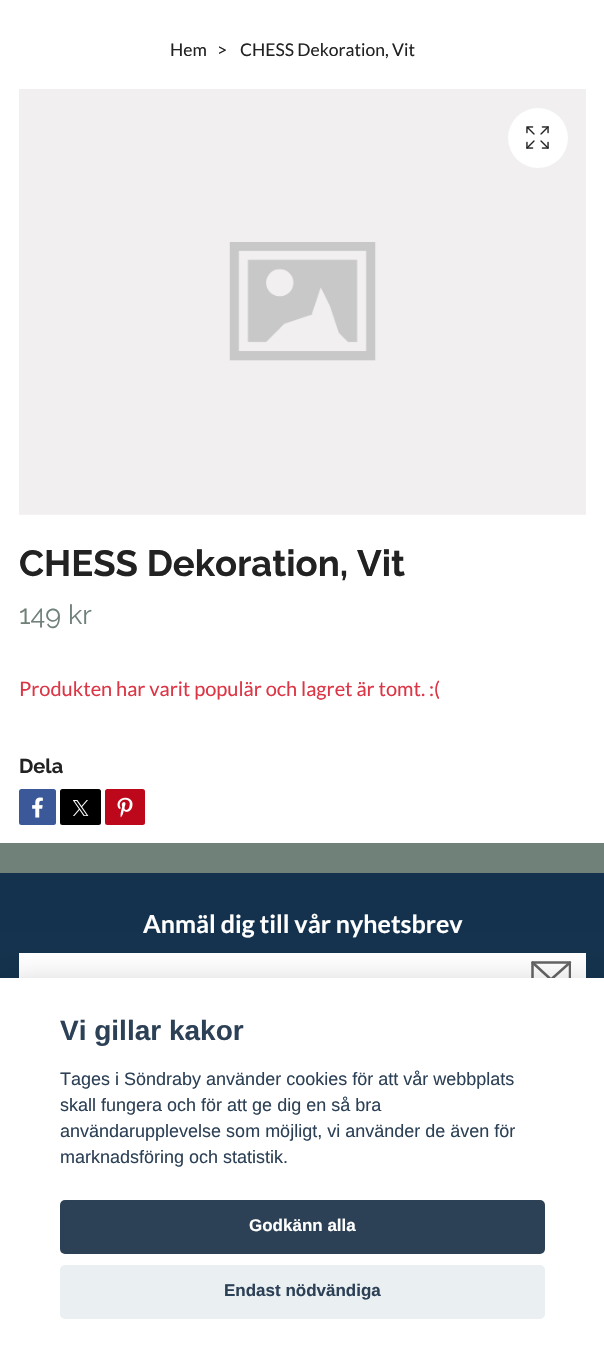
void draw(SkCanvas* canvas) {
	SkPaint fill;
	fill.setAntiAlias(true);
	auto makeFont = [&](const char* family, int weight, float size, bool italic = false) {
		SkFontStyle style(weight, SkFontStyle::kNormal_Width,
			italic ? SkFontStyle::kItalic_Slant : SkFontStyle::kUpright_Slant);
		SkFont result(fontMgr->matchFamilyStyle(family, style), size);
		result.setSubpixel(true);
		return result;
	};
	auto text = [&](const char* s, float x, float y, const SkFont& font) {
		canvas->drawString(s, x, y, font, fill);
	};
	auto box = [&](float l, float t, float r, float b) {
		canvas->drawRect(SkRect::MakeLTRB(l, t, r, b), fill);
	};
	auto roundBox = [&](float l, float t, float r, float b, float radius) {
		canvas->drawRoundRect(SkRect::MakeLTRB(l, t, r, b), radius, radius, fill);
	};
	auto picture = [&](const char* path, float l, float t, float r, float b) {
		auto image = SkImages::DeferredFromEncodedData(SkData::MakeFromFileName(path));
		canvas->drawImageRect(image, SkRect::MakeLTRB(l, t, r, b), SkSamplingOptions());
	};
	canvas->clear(0xFFFFFFFF);
	picture("image0.png", 19, 89, 586, 515);
	fill.setColor(0xFFFFFFFF);
	canvas->drawCircle(538, 138, 30, fill);
	picture("image1.png", 526, 126, 549, 149);
	fill.setColor(0xFF3B5998);
	roundBox(19, 789, 56, 825, 2.5f);
	picture("image2.png", 32, 797, 43, 818);
	fill.setColor(0xFF000000);
	roundBox(60, 789, 101, 825, 2.5f);
	fill.setColor(0xFFBD081C);
	roundBox(105, 789, 145, 825, 2.5f);
	picture("image3.png", 117, 797, 133, 818);
	picture("image4.png", 73, 800, 89, 816);
	fill.setColor(0xFF6F8178);
	box(0, 843, 604, 873);
	fill.setColor(0xFF14324D);
	box(0, 873, 604, 978);
	fill.setColor(0xFFFFFFFF);
	box(19, 953, 586, 978);
	fill.setStyle(SkPaint::kStroke_Style);
	fill.setStrokeWidth(2.5f);
	fill.setStrokeCap(SkPaint::kRound_Cap);
	fill.setStrokeJoin(SkPaint::kRound_Join);
	fill.setColor(0xFF646464);
	canvas->drawPath(SkPathBuilder().moveTo(532.5f, 962.5f).lineTo(551, 979.5f).lineTo(570, 962.5f).detach(), fill);
	canvas->save();
	canvas->clipRect(SkRect::MakeLTRB(531, 955, 571, 995));
	canvas->drawPath(SkPathBuilder().moveTo(532.5f, 962.5f).lineTo(570, 962.5f).lineTo(570, 987.5f).lineTo(532.5f, 987.5f).close().detach(), fill);
	canvas->restore();
	fill.setStyle(SkPaint::kFill_Style);
	fill.setColor(0x47020203);
	fill.setMaskFilter(SkMaskFilter::MakeBlur(kNormal_SkBlurStyle, 19));
	canvas->drawRect(SkRect::MakeLTRB(0, 990, 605, 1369), fill);
	fill.setMaskFilter(nullptr);
	fill.setColor(0xFFFFFFFF);
	box(0, 978, 604, 1356);
	fill.setColor(0xFF2D4156);
	roundBox(60, 1200, 545, 1254, 5);
	fill.setColor(0xFFEAEFF2);
	roundBox(60, 1265, 545, 1319, 5);
	auto font1 = makeFont("Lato", 400, 17.5f);
	fill.setColor(0xFF222222);
	text("Hem", 170, 56, font1);
	text(">", 217, 56, font1);
	text("CHESS Dekoration, Vit", 240, 56, font1);
	auto font2 = makeFont("Raleway", 700, 36.5f);
	text("CHESS Dekoration, Vit", 19, 576, font2);
	auto font3 = makeFont("Raleway", 400, 27);
	fill.setColor(0xFF6F8178);
	text("149 kr", 19, 624, font3);
	auto font4 = makeFont("Lato", 400, 20);
	fill.setColor(0xFFDC3545);
	text("Produkten har varit populär och lagret är tomt. :(", 19, 696, font4);
	auto font5 = makeFont("Raleway", 700, 20);
	fill.setColor(0xFF222222);
	text("Dela", 19, 773, font5);
	auto font6 = makeFont("Lato", 700, 25);
	fill.setColor(0xFFFFFFFF);
	text("Anmäl dig till vår nyhetsbrev", 143, 933, font6);
	auto font7 = makeFont("Liberation Sans", 700, 28);
	fill.setColor(0xFF2D4156);
	text("Vi gillar kakor", 60, 1040, font7);
	auto font8 = makeFont("Liberation Sans", 400, 18);
	text("Tages i Söndraby använder cookies för att vår webbplats", 60, 1085, font8);
	text("skall fungera och för att ge dig en så bra", 60, 1111, font8);
	text("användarupplevelse som möjligt, vi använder de även för", 60, 1137, font8);
	text("marknadsföring och statistik.", 60, 1163, font8);
	auto font9 = makeFont("Liberation Sans", 700, 17);
	fill.setColor(0xFFFFFFFF);
	text("Godkänn alla", 249, 1231, font9);
	fill.setColor(0xFF2D4156);
	text("Endast nödvändiga", 224, 1296, font9);
}
